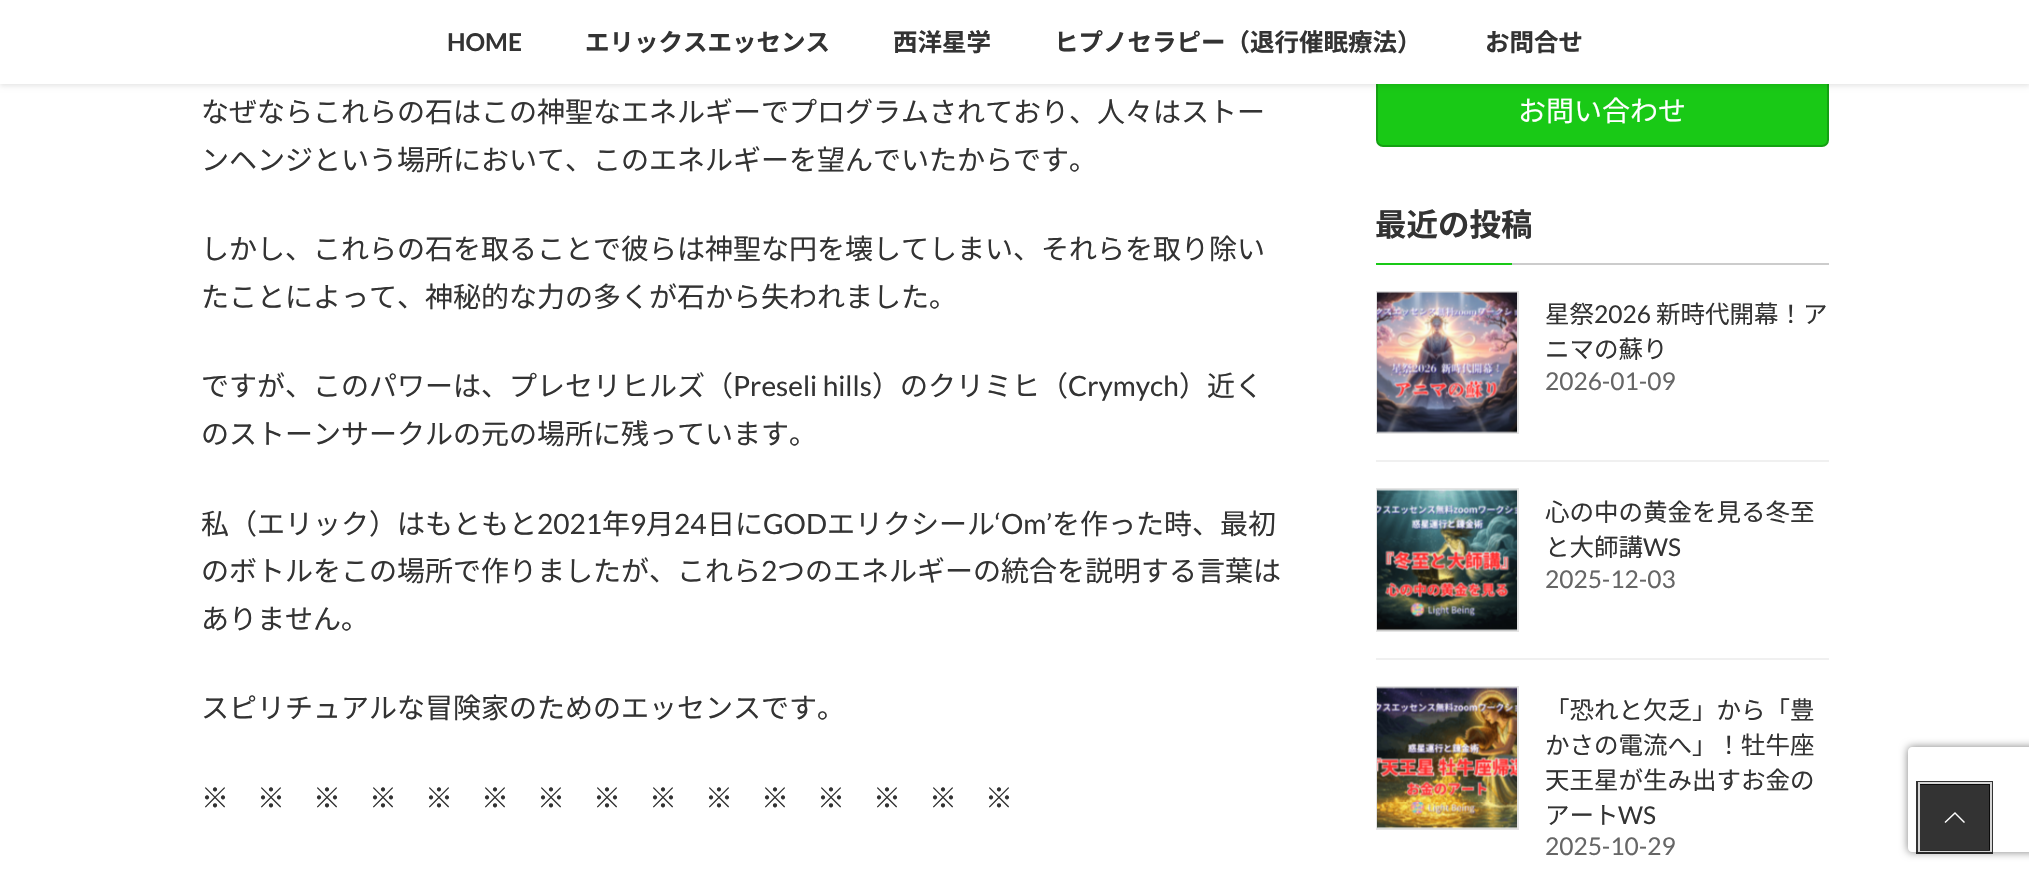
void draw(SkCanvas* canvas) {
	SkPaint fill;
	fill.setAntiAlias(true);
	auto makeFont = [&](const char* family, int weight, float size, bool italic = false) {
		SkFontStyle style(weight, SkFontStyle::kNormal_Width,
			italic ? SkFontStyle::kItalic_Slant : SkFontStyle::kUpright_Slant);
		SkFont result(fontMgr->matchFamilyStyle(family, style), size);
		result.setSubpixel(true);
		return result;
	};
	auto text = [&](const char* s, float x, float y, const SkFont& font) {
		canvas->drawString(s, x, y, font, fill);
	};
	auto box = [&](float l, float t, float r, float b) {
		canvas->drawRect(SkRect::MakeLTRB(l, t, r, b), fill);
	};
	auto picture = [&](const char* path, float l, float t, float r, float b) {
		auto image = SkImages::DeferredFromEncodedData(SkData::MakeFromFileName(path));
		canvas->drawImageRect(image, SkRect::MakeLTRB(l, t, r, b), SkSamplingOptions());
	};
	canvas->clear(0xFFFFFFFF);
	fill.setColor(0xFF19C916);
	canvas->drawRoundRect(SkRect::MakeLTRB(1377, 71, 1828, 146), 6, 6, fill);
	fill.setStyle(SkPaint::kStroke_Style);
	fill.setStrokeWidth(2);
	fill.setColor(0xFF14A112);
	canvas->drawRoundRect(SkRect::MakeLTRB(1377, 71, 1828, 146), 6, 6, fill);
	fill.setStyle(SkPaint::kFill_Style);
	fill.setColor(0x1A000000);
	fill.setMaskFilter(SkMaskFilter::MakeBlur(kNormal_SkBlurStyle, 2.5f));
	canvas->drawRect(SkRect::MakeLTRB(0, 2, 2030, 86), fill);
	fill.setMaskFilter(nullptr);
	fill.setColor(0xFFFFFFFF);
	box(0, 0, 2029, 84);
	fill.setColor(0xFFCCCCCC);
	box(1512, 263, 1829, 265);
	fill.setColor(0xFF19C916);
	box(1376, 263, 1512, 265);
	fill.setColor(0xFFF0F0F0);
	box(1376, 460, 1829, 462);
	fill.setStyle(SkPaint::kStroke_Style);
	fill.setColor(0xFFE5E5E5);
	canvas->drawRect(SkRect::MakeLTRB(1377, 292, 1518, 433), fill);
	picture("image0.png", 1377, 291, 1517, 433);
	fill.setStyle(SkPaint::kFill_Style);
	fill.setColor(0xFFF0F0F0);
	box(1376, 658, 1829, 660);
	fill.setStyle(SkPaint::kStroke_Style);
	fill.setColor(0xFFE5E5E5);
	canvas->drawRect(SkRect::MakeLTRB(1377, 489, 1518, 631), fill);
	picture("image1.png", 1377, 489, 1517, 631);
	canvas->drawRect(SkRect::MakeLTRB(1377, 687, 1518, 829), fill);
	picture("image2.png", 1377, 687, 1517, 829);
	canvas->save();
	canvas->clipPath(SkPathBuilder(SkPathFillType::kEvenOdd).moveTo(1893, 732).lineTo(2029, 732).lineTo(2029, 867).lineTo(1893, 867).close().moveTo(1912, 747).lineTo(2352, 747).cubicTo(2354, 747, 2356, 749, 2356, 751).lineTo(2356, 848).cubicTo(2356, 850, 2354, 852, 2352, 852).lineTo(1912, 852).cubicTo(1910, 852, 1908, 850, 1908, 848).lineTo(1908, 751).cubicTo(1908, 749, 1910, 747, 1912, 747).close().detach(), true);
	fill.setStyle(SkPaint::kFill_Style);
	fill.setColor(0xFF808080);
	fill.setMaskFilter(SkMaskFilter::MakeBlur(kNormal_SkBlurStyle, 4.5f));
	canvas->drawRoundRect(SkRect::MakeLTRB(1908, 747, 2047, 852), 4, 4, fill);
	fill.setMaskFilter(nullptr);
	canvas->restore();
	fill.setStyle(SkPaint::kStroke_Style);
	fill.setStrokeWidth(4);
	fill.setColor(0xCC000000);
	canvas->drawRect(SkRect::MakeLTRB(1918, 783, 1991, 852), fill);
	fill.setStrokeWidth(2);
	fill.setColor(0xFFD6D6D6);
	canvas->drawRect(SkRect::MakeLTRB(1919, 783, 1991, 851), fill);
	fill.setStyle(SkPaint::kFill_Style);
	fill.setColor(0xCC000000);
	box(1920, 784, 1990, 851);
	fill.setColor(0xFFFFFFFF);
	canvas->drawPath(SkPathBuilder().moveTo(1965, 822).lineTo(1964, 823).lineTo(1955, 814).lineTo(1945.5f, 823).lineTo(1944.5f, 822).lineTo(1955, 812).close().detach(), fill);
	auto font1 = makeFont("Lato", 700, 24.5f);
	fill.setColor(0xFF333333);
	text("HOME", 447, 51, font1);
	auto font2 = makeFont("Noto Sans JP", 700, 24.5f);
	text("エリックスエッセンス", 585, 51, font2);
	text("西洋星学", 893, 51, font2);
	text("ヒプノセラピー（退行催眠療法）", 1054, 51, font2);
	text("お問合せ", 1485, 51, font2);
	auto font3 = makeFont("Noto Sans JP", 400, 28);
	text("なぜならこれらの石はこの神聖なエネルギーでプログラムされており、人々はストー", 201, 122, font3);
	text("ンヘンジという場所において、このエネルギーを望んでいたからです。", 201, 170, font3);
	text("しかし、これらの石を取ることで彼らは神聖な円を壊してしまい、それらを取り除い", 201, 259, font3);
	text("たことによって、神秘的な力の多くが石から失われました。", 201, 307, font3);
	text("ですが、このパワーは、プレセリヒルズ（", 201, 396, font3);
	auto font4 = makeFont("Lato", 400, 28);
	text("Preseli hills", 733, 396, font4);
	text("）のクリミヒ（", 872, 396, font3);
	text("Crymych", 1068, 396, font4);
	text("）近く", 1179, 396, font3);
	text("のストーンサークルの元の場所に残っています。", 201, 444, font3);
	text("私（エリック）はもともと", 201, 534, font3);
	text("2021", 537, 534, font4);
	text("年", 602, 534, font3);
	text("9", 630, 534, font4);
	text("月", 646, 534, font3);
	text("24", 674, 534, font4);
	text("日に", 707, 534, font3);
	text("GOD", 763, 534, font4);
	text("エリクシール", 827, 534, font3);
	text("‘Om’", 995, 534, font4);
	text("を作った時、最初", 1052, 534, font3);
	text("のボトルをこの場所で作りましたが、これら", 201, 581, font3);
	text("2", 761, 581, font4);
	text("つのエネルギーの統合を説明する言葉は", 777, 581, font3);
	text("ありません。", 201, 629, font3);
	text("スピリチュアルな冒険家のためのエッセンスです。", 201, 718, font3);
	text("※　※　※　※　※　※　※　※　※　※　※　※　※　※　※", 201, 808, font3);
	fill.setColor(0xFFFFFFFF);
	text("お問い合わせ", 1518, 121, font3);
	auto font5 = makeFont("Noto Sans JP", 700, 31.5f);
	fill.setColor(0xFF333333);
	text("最近の投稿", 1375, 236, font5);
	auto font6 = makeFont("Noto Sans JP", 400, 24.5f);
	text("星祭", 1545, 323, font6);
	auto font7 = makeFont("Lato", 400, 24.5f);
	text("2026", 1594, 323, font7);
	text("新時代開幕！ア", 1656, 323, font6);
	text("ニマの蘇り", 1545, 358, font6);
	fill.setColor(0xFF666666);
	text("2026-01-09", 1545, 390, font7);
	fill.setColor(0xFF333333);
	text("心の中の黄金を見る冬至", 1545, 521, font6);
	text("と大師講", 1545, 556, font6);
	text("WS", 1643, 556, font7);
	fill.setColor(0xFF666666);
	text("2025-12-03", 1545, 588, font7);
	fill.setColor(0xFF333333);
	text("「恐れと欠乏」から「豊", 1545, 719, font6);
	text("かさの電流へ」！牡牛座", 1545, 754, font6);
	text("天王星が生み出すお金の", 1545, 789, font6);
	text("アート", 1545, 824, font6);
	text("WS", 1618, 824, font7);
	fill.setColor(0xFF666666);
	text("2025-10-29", 1545, 855, font7);
}
